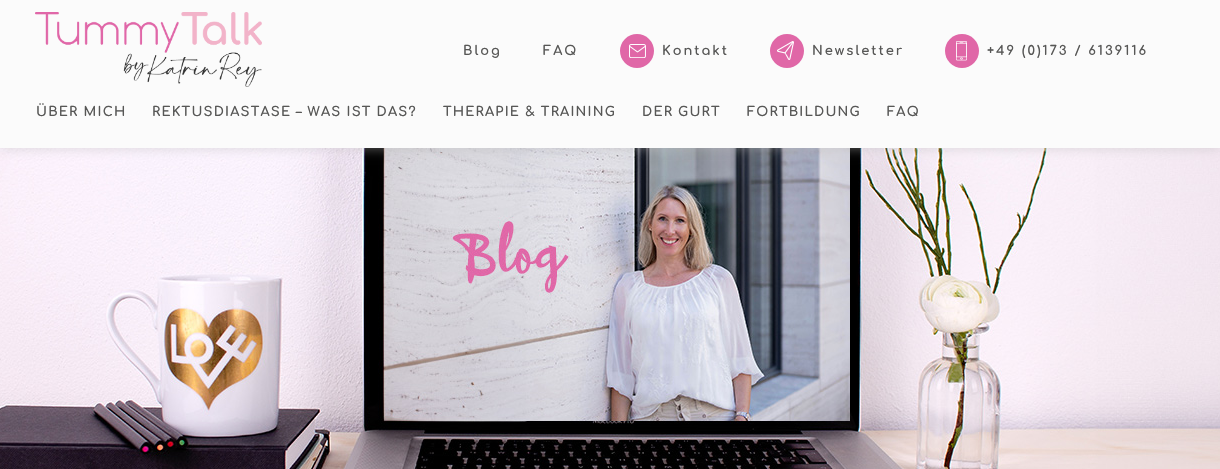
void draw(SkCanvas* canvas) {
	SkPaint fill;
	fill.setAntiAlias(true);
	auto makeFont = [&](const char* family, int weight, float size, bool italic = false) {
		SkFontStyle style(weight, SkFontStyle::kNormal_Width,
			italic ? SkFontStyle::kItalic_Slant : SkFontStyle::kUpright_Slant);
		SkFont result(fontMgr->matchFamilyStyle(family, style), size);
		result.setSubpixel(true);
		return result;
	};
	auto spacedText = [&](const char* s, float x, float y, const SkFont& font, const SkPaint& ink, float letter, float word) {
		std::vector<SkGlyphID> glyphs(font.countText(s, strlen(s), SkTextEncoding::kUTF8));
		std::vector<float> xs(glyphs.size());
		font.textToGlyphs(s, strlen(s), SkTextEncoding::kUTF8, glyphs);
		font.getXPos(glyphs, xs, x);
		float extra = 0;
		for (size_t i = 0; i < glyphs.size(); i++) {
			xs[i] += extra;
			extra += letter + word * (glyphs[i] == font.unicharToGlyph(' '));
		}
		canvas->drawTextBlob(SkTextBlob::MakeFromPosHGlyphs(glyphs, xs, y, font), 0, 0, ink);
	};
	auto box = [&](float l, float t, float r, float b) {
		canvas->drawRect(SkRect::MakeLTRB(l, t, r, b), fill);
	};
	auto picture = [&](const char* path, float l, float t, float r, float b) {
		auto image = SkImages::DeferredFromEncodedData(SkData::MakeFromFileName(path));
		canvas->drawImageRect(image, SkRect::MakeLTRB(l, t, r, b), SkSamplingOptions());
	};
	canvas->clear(0xFFFFFFFF);
	picture("image4.png", 0, 148, 1220, 469);
	fill.setColor(0x66BABABA);
	fill.setMaskFilter(SkMaskFilter::MakeBlur(kNormal_SkBlurStyle, 5));
	canvas->drawRect(SkRect::MakeLTRB(0, 2, 1220, 150), fill);
	fill.setMaskFilter(nullptr);
	fill.setColor(0xFFFBFBFB);
	box(0, 0, 1220, 148);
	picture("image0.png", 35, 12, 262, 87);
	fill.setColor(0xFFE067A7);
	canvas->drawCircle(637, 51, 17, fill);
	picture("image1.png", 629, 44, 646, 58);
	canvas->drawCircle(787, 51, 17, fill);
	picture("image2.png", 777, 41, 794, 60);
	canvas->drawCircle(962, 51, 17, fill);
	picture("image3.png", 956, 41, 967, 61);
	auto font1 = makeFont("Comfortaa", 700, 13);
	fill.setColor(0xFF575756);
	spacedText("Blog", 463, 55, font1, fill, 2, 0);
	spacedText("FAQ", 543, 55, font1, fill, 2, 0);
	spacedText("Kontakt", 662, 55, font1, fill, 2, 0);
	spacedText("Newsletter", 812, 55, font1, fill, 2, 0);
	spacedText("+49 (0)173 / 6139116", 987, 55, font1, fill, 2, 0);
	spacedText("ÜBER MICH", 36, 116, font1, fill, 1.2f, 0);
	spacedText("REKTUSDIASTASE – WAS IST DAS?", 152, 116, font1, fill, 1.2f, 0);
	spacedText("THERAPIE & TRAINING", 443, 116, font1, fill, 1.2f, 0);
	spacedText("DER GURT", 642, 116, font1, fill, 1.2f, 0);
	spacedText("FORTBILDUNG", 747, 116, font1, fill, 1.2f, 0);
	spacedText("FAQ", 887, 116, font1, fill, 1.2f, 0);
}
